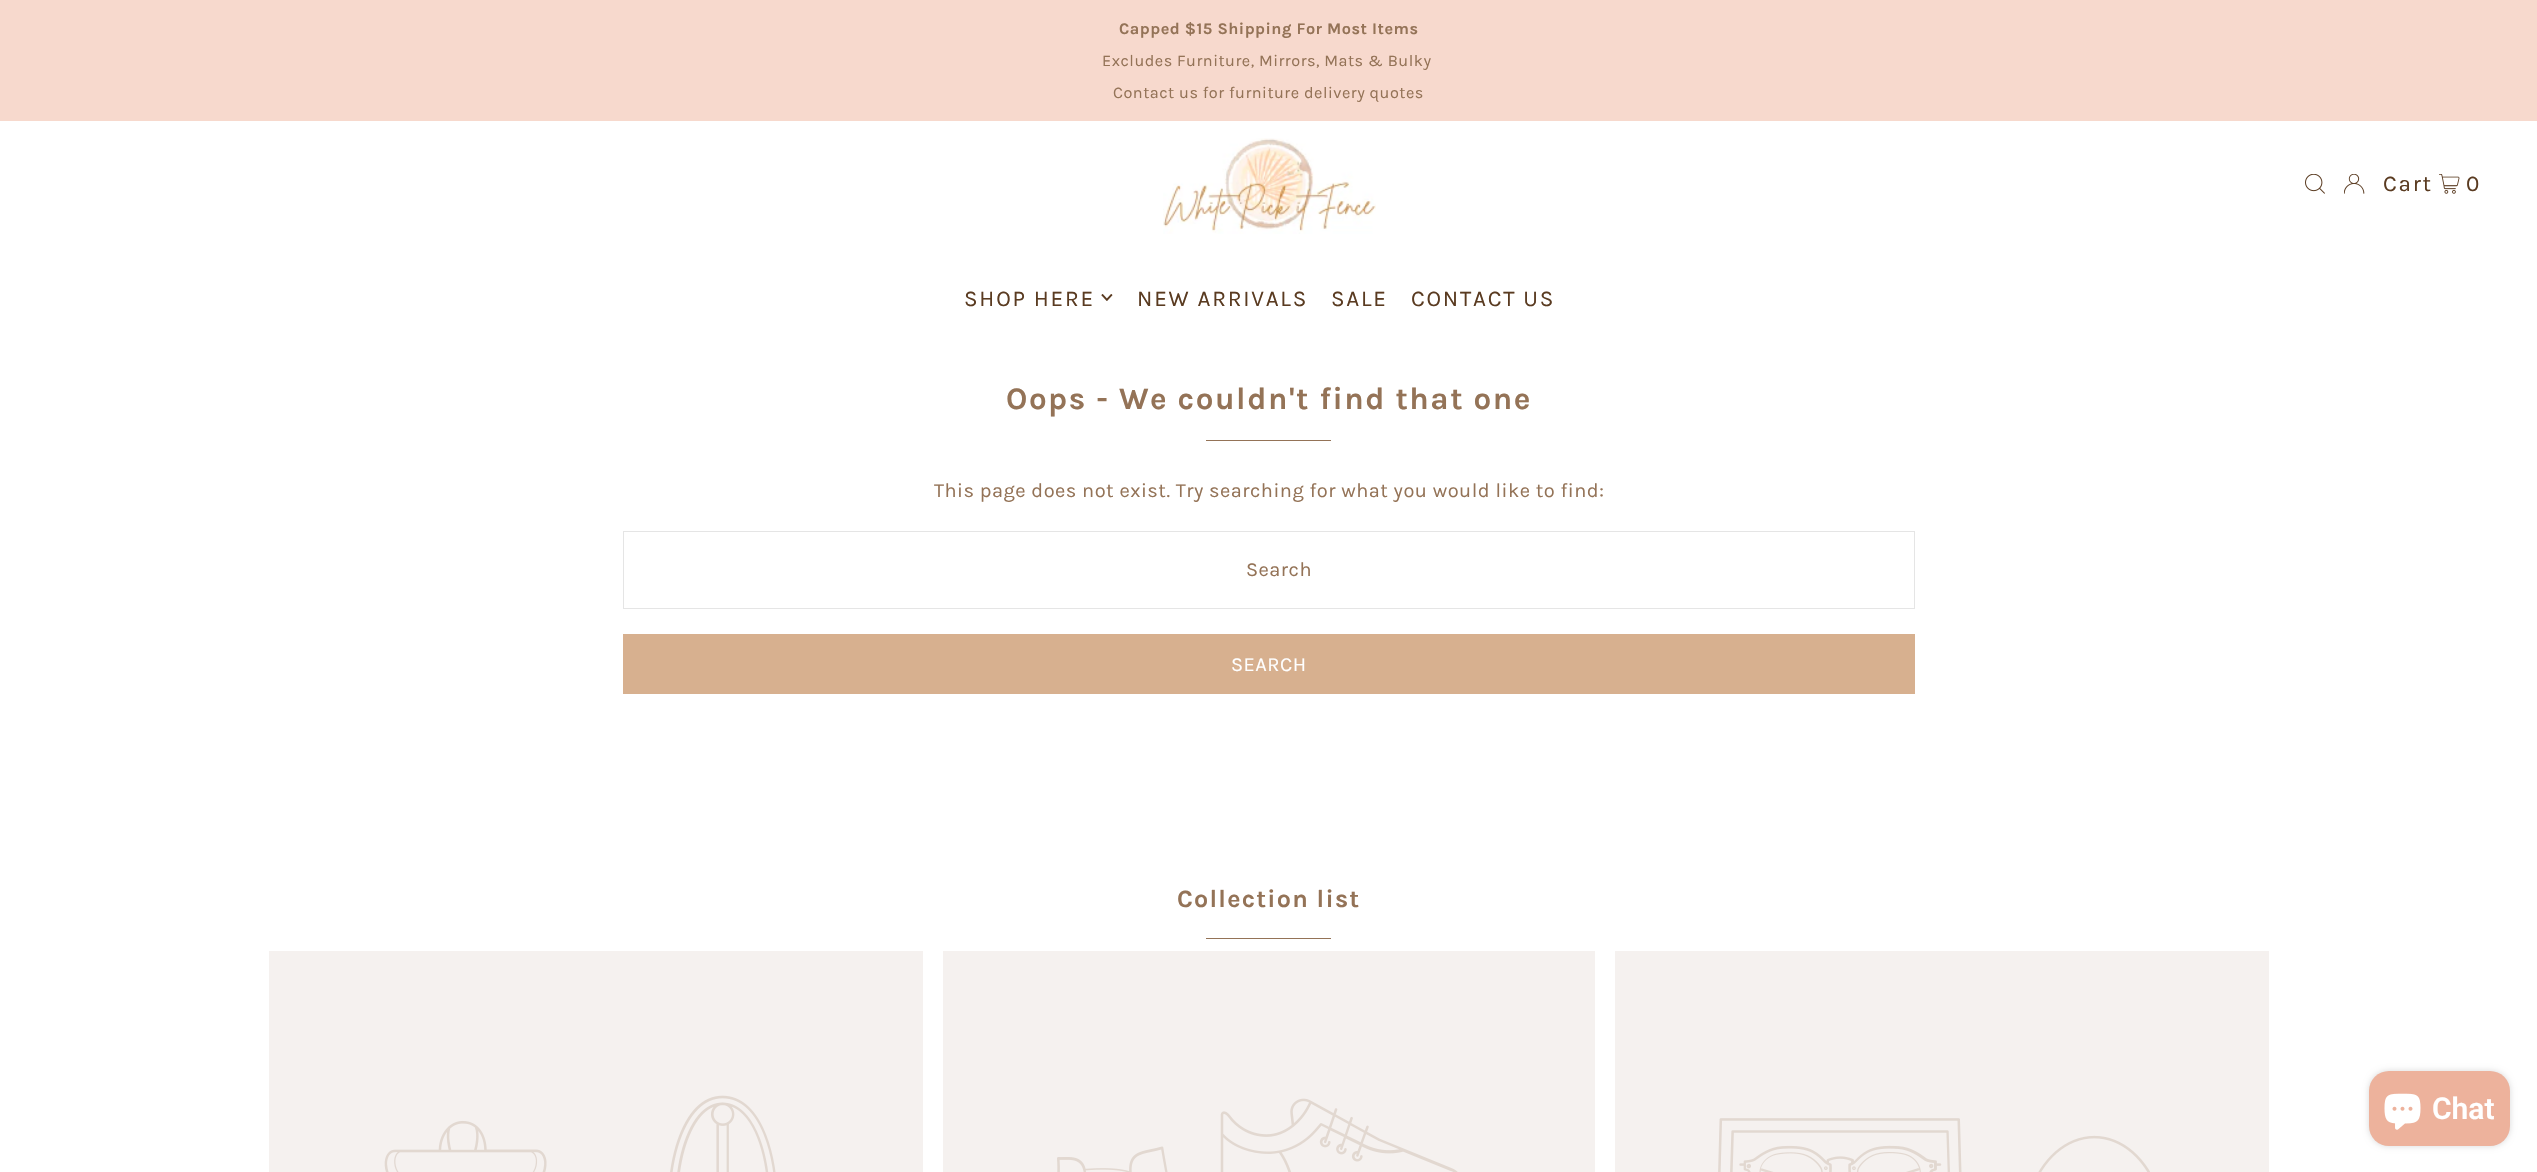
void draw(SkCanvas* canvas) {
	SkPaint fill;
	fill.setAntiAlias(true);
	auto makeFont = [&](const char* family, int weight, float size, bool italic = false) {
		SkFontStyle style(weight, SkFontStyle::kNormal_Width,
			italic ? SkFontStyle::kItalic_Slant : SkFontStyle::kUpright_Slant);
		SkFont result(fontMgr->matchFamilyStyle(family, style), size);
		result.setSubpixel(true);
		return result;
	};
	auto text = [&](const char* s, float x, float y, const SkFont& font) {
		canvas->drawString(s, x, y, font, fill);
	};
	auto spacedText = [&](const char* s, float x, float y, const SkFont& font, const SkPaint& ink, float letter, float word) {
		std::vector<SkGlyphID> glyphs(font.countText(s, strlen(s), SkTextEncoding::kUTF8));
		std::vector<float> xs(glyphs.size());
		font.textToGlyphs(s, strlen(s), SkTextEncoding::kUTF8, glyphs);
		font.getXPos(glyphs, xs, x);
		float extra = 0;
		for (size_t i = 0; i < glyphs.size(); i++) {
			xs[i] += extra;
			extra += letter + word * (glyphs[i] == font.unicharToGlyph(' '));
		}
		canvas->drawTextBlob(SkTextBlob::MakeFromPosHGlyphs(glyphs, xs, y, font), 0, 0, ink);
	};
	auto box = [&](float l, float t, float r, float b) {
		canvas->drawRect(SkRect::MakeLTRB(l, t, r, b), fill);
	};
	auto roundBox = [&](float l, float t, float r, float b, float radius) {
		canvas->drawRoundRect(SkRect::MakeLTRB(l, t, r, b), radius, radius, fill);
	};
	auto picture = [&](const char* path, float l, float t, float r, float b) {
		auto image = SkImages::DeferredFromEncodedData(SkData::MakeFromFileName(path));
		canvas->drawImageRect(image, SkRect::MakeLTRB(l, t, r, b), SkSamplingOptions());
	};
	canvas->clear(0xFFFFFFFF);
	fill.setColor(0xFFF7D9CD);
	box(0, 0, 2537, 121);
	picture("image0.png", 1163, 138, 1376, 234);
	picture("image1.png", 2305, 174, 2325, 194);
	picture("image2.png", 2344, 174, 2365, 194);
	picture("image3.png", 2439, 174, 2460, 194);
	picture("image4.png", 1101, 294, 1113, 301);
	fill.setColor(0xFF947357);
	box(1206, 440, 1331, 441);
	fill.setStyle(SkPaint::kStroke_Style);
	fill.setStrokeWidth(1);
	fill.setColor(0xFFE5E5E5);
	canvas->drawRect(SkRect::MakeLTRB(623.5f, 531.5f, 1914.5f, 608.5f), fill);
	fill.setStyle(SkPaint::kFill_Style);
	fill.setColor(0xFFD7B08F);
	box(623, 634, 1915, 694);
	fill.setColor(0xFF947357);
	box(1206, 938, 1331, 939);
	fill.setColor(0xFFF5F1EF);
	box(269, 951, 923, 1172);
	picture("image5.png", 384, 1095, 776, 1172);
	box(943, 951, 1595, 1172);
	picture("image6.png", 1057, 1098, 1458, 1172);
	box(1615, 951, 2269, 1172);
	picture("image7.png", 1718, 1118, 2150, 1172);
	fill.setColor(0x26000000);
	fill.setMaskFilter(SkMaskFilter::MakeBlur(kNormal_SkBlurStyle, 3));
	canvas->drawRoundRect(SkRect::MakeLTRB(2369, 1071, 2510, 1146), 20, 20, fill);
	fill.setMaskFilter(nullptr);
	fill.setColor(0xFFEDB29C);
	roundBox(2369, 1071, 2510, 1146, 20);
	picture("image8.png", 2384, 1093, 2421, 1130);
	auto font1 = makeFont("Karla", 700, 16.25f);
	fill.setColor(0xFF947357);
	spacedText("Capped $15 Shipping For Most Items", 1119, 34, font1, fill, 0.5f, 0);
	auto font2 = makeFont("Karla", 400, 16.25f);
	spacedText("Excludes Furniture, Mirrors, Mats & Bulky", 1102, 66, font2, fill, 0.5f, 0);
	spacedText("Contact us for furniture delivery quotes", 1113, 98, font2, fill, 0.5f, 0);
	auto font3 = makeFont("Karla", 400, 22.5f);
	fill.setColor(0xFF5A3B21);
	spacedText("Cart", 2383, 191, font3, fill, 1.75f, 0);
	spacedText("0", 2466, 191, font3, fill, 1.75f, 0);
	spacedText("SHOP HERE", 964, 306, font3, fill, 1.75f, 0);
	spacedText("NEW ARRIVALS", 1137, 306, font3, fill, 1.75f, 0);
	spacedText("SALE", 1331, 306, font3, fill, 1.75f, 0);
	spacedText("CONTACT US", 1411, 306, font3, fill, 1.75f, 0);
	auto font4 = makeFont("Karla", 700, 31.25f);
	fill.setColor(0xFF947357);
	spacedText("Oops - We couldn't find that one", 1006, 409, font4, fill, 1.55f, 0);
	auto font5 = makeFont("Karla", 400, 20);
	spacedText("This page does not exist. Try searching for what you would like to find:", 934, 497, font5, fill, 0.5f, 0);
	spacedText("Search", 1246, 576, font5, fill, 0.5f, 0);
	fill.setColor(0xFFFFFFFF);
	spacedText("SEARCH", 1231, 671, font5, fill, 0.5f, 0);
	auto font6 = makeFont("Karla", 700, 25);
	fill.setColor(0xFF947357);
	spacedText("Collection list", 1177, 907, font6, fill, 1.25f, 0);
	auto font7 = makeFont("Roboto", 600, 30);
	fill.setColor(0xFFFFFFFF);
	text("Chat", 2432, 1119, font7);
}
